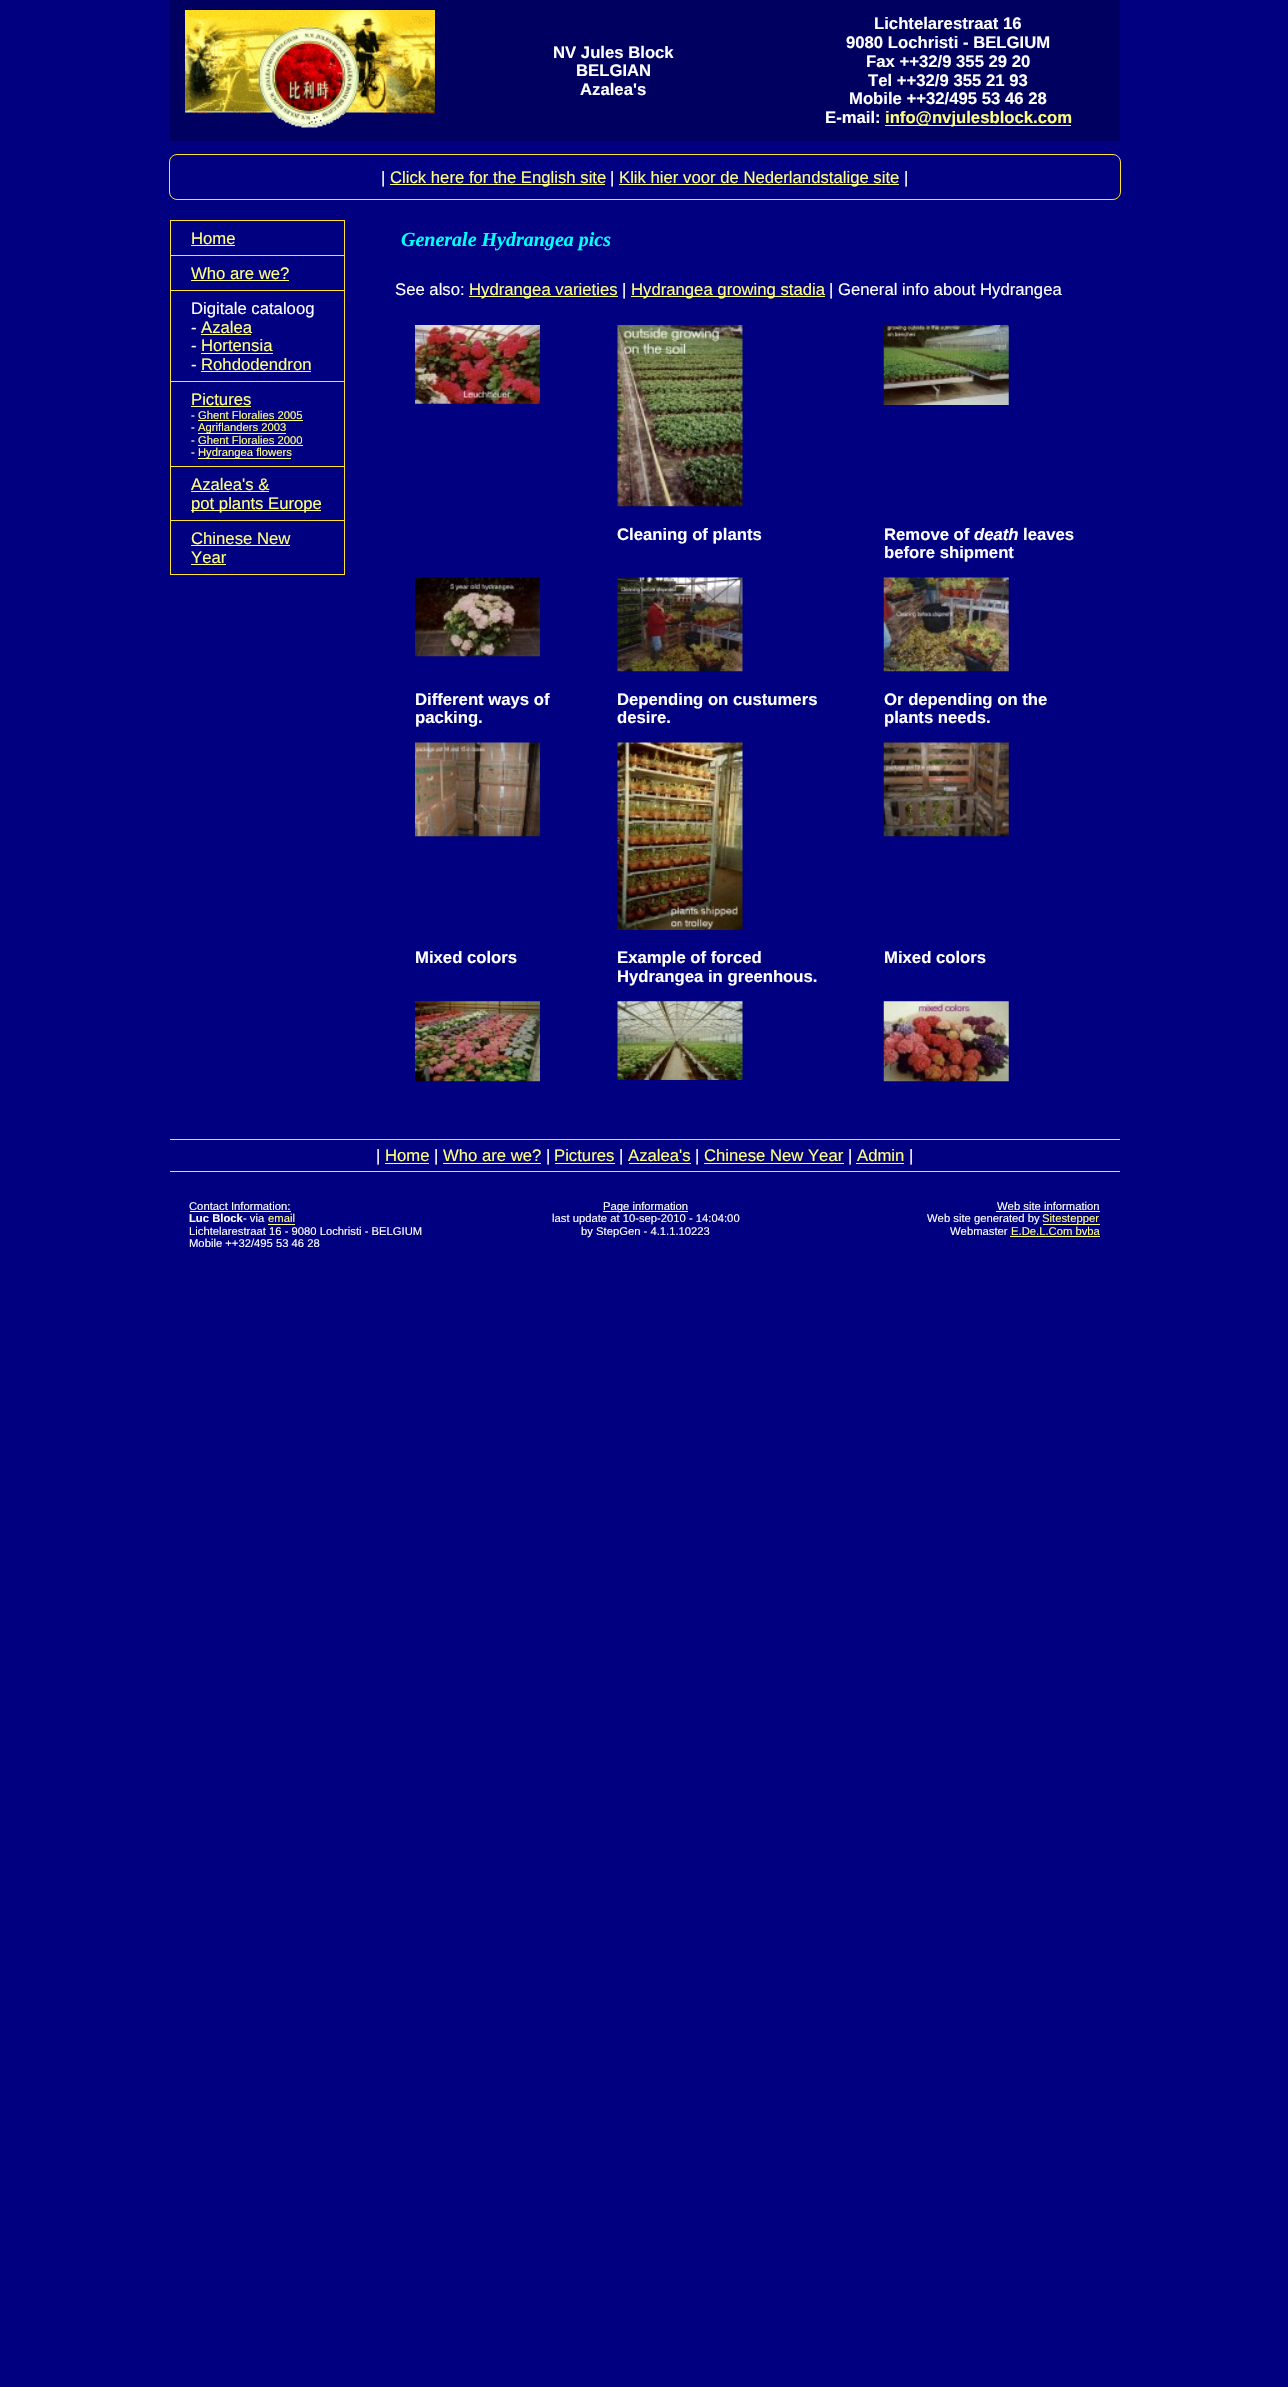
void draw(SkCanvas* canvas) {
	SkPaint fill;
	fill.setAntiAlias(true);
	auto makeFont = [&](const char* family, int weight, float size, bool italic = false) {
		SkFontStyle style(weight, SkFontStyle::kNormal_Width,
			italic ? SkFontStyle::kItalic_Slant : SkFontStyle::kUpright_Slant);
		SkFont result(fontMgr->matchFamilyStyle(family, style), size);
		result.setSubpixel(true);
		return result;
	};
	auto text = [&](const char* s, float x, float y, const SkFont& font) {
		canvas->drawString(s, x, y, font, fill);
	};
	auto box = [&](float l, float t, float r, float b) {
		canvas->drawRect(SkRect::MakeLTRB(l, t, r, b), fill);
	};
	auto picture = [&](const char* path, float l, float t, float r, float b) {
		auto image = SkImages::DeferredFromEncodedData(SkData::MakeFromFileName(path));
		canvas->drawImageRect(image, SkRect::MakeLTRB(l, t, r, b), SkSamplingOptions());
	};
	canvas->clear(0xFF000080);
	fill.setColor(0xFF000060);
	box(170, 0, 1120, 141);
	picture("image0.png", 185, 10, 435, 128);
	fill.setColor(0xFFFFFF80);
	box(885, 125, 1071, 126);
	fill.setStyle(SkPaint::kStroke_Style);
	fill.setStrokeWidth(1);
	fill.setColor(0xFFFFE32D);
	canvas->drawRoundRect(SkRect::MakeLTRB(169.5f, 154.5f, 1120.5f, 199.5f), 7.5f, 7.5f, fill);
	fill.setStyle(SkPaint::kFill_Style);
	fill.setColor(0xFFFFFF80);
	box(390, 184, 605, 185);
	box(619, 184, 899, 185);
	fill.setColor(0xFFFFE32D);
	box(170, 220, 345, 221);
	box(344, 220, 345, 575);
	box(170, 574, 345, 575);
	box(170, 220, 171, 575);
	fill.setColor(0xFFFFFF80);
	box(191, 245, 235, 246);
	fill.setColor(0xFFFFE32D);
	box(170, 255, 345, 256);
	fill.setColor(0xFFFFFF80);
	box(191, 280, 289, 281);
	fill.setColor(0xFFFFE32D);
	box(170, 290, 345, 291);
	fill.setColor(0xFFFFFF80);
	box(201, 334, 251, 335);
	box(201, 353, 273, 354);
	box(201, 371, 311, 372);
	fill.setColor(0xFFFFE32D);
	box(170, 381, 345, 382);
	fill.setColor(0xFFFFFF80);
	box(191, 406, 251, 407);
	box(198, 420, 303, 421);
	box(198, 433, 286, 434);
	box(198, 445, 303, 446);
	box(198, 458, 291, 459);
	fill.setColor(0xFFFFE32D);
	box(170, 466, 345, 467);
	fill.setColor(0xFFFFFF80);
	box(191, 491, 269, 492);
	box(191, 510, 321, 511);
	fill.setColor(0xFFFFE32D);
	box(170, 520, 345, 521);
	fill.setColor(0xFFFFFF80);
	box(191, 545, 290, 546);
	box(191, 564, 226, 565);
	box(469, 296, 618, 297);
	box(631, 296, 825, 297);
	picture("image1.png", 415, 325, 540, 404);
	picture("image2.png", 617, 325, 743, 507);
	picture("image3.png", 883, 325, 1009, 405);
	picture("image4.png", 415, 577, 540, 657);
	picture("image5.png", 617, 577, 743, 672);
	picture("image6.png", 883, 577, 1009, 672);
	picture("image7.png", 415, 742, 540, 837);
	picture("image8.png", 617, 742, 743, 930);
	picture("image9.png", 883, 742, 1009, 837);
	picture("image10.png", 415, 1001, 540, 1082);
	picture("image11.png", 617, 1001, 743, 1080);
	picture("image12.png", 883, 1001, 1009, 1082);
	fill.setColor(0xFFFFE32D);
	box(170, 1139, 1120, 1140);
	box(170, 1171, 1120, 1172);
	fill.setColor(0xFFFFFF80);
	box(385, 1163, 429, 1164);
	box(443, 1163, 541, 1164);
	box(555, 1163, 615, 1164);
	box(629, 1163, 691, 1164);
	box(704, 1163, 844, 1164);
	box(856, 1163, 904, 1164);
	fill.setColor(0xFFFFFFFF);
	box(190, 1211, 291, 1212);
	fill.setColor(0xFFFFFF80);
	box(268, 1224, 295, 1225);
	fill.setColor(0xFFFFFFFF);
	box(603, 1211, 688, 1212);
	box(996, 1211, 1100, 1212);
	fill.setColor(0xFFFFFF80);
	box(1043, 1224, 1100, 1225);
	box(1010, 1236, 1100, 1237);
	auto font1 = makeFont("Liberation Sans", 700, 16.7f);
	fill.setColor(0xFFFFFFFF);
	text("NV Jules Block", 553, 58, font1);
	text("BELGIAN", 576, 76, font1);
	text("Azalea's", 580, 95, font1);
	text("Lichtelarestraat 16", 874, 29, font1);
	text("9080 Lochristi - BELGIUM", 846, 48, font1);
	text("Fax ++32/9 355 29 20", 866, 67, font1);
	text("Tel ++32/9 355 21 93", 868, 86, font1);
	text("Mobile ++32/495 53 46 28", 849, 104, font1);
	text("E-mail:", 825, 123, font1);
	fill.setColor(0xFFFFFF80);
	text("info@nvjulesblock.com", 885, 123, font1);
	auto font2 = makeFont("Liberation Sans", 400, 16.7f);
	fill.setColor(0xFFFFFFFF);
	text("|", 381, 183, font2);
	fill.setColor(0xFFFFFF80);
	text("Click here for the English site", 390, 183, font2);
	fill.setColor(0xFFFFFFFF);
	text("|", 610, 183, font2);
	fill.setColor(0xFFFFFF80);
	text("Klik hier voor de Nederlandstalige site", 619, 183, font2);
	fill.setColor(0xFFFFFFFF);
	text("|", 904, 183, font2);
	fill.setColor(0xFFFFFF80);
	text("Home", 191, 244, font2);
	text("Who are we?", 191, 279, font2);
	fill.setColor(0xFFFFFFFF);
	text("Digitale cataloog", 191, 314, font2);
	text("-", 191, 333, font2);
	fill.setColor(0xFFFFFF80);
	text("Azalea", 201, 333, font2);
	fill.setColor(0xFFFFFFFF);
	text("-", 191, 351, font2);
	fill.setColor(0xFFFFFF80);
	text("Hortensia", 201, 351, font2);
	fill.setColor(0xFFFFFFFF);
	text("-", 191, 370, font2);
	fill.setColor(0xFFFFFF80);
	text("Rohdodendron", 201, 370, font2);
	text("Pictures", 191, 405, font2);
	auto font3 = makeFont("Liberation Sans", 400, 11.25f);
	fill.setColor(0xFFFFFFFF);
	text("-", 191, 419, font3);
	fill.setColor(0xFFFFFF80);
	text("Ghent Floralies 2005", 198, 419, font3);
	fill.setColor(0xFFFFFFFF);
	text("-", 191, 431, font3);
	fill.setColor(0xFFFFFF80);
	text("Agriflanders 2003", 198, 431, font3);
	fill.setColor(0xFFFFFFFF);
	text("-", 191, 444, font3);
	fill.setColor(0xFFFFFF80);
	text("Ghent Floralies 2000", 198, 444, font3);
	fill.setColor(0xFFFFFFFF);
	text("-", 191, 456, font3);
	fill.setColor(0xFFFFFF80);
	text("Hydrangea flowers", 198, 456, font3);
	text("Azalea's &", 191, 490, font2);
	text("pot plants Europe", 191, 509, font2);
	text("Chinese New", 191, 544, font2);
	text("Year", 191, 563, font2);
	auto font4 = makeFont("Liberation Serif", 700, 20, true);
	fill.setColor(0xFF00FFFF);
	text("Generale Hydrangea pics", 401, 246, font4);
	fill.setColor(0xFFFFFFFF);
	text("See also:", 395, 295, font2);
	fill.setColor(0xFFFFFF80);
	text("Hydrangea varieties", 469, 295, font2);
	fill.setColor(0xFFFFFFFF);
	text("|", 622, 295, font2);
	fill.setColor(0xFFFFFF80);
	text("Hydrangea growing stadia", 631, 295, font2);
	fill.setColor(0xFFFFFFFF);
	text("| General info about Hydrangea", 829, 295, font2);
	text("Cleaning of plants", 617, 540, font1);
	text("Remove of", 884, 540, font1);
	auto font5 = makeFont("Liberation Sans", 700, 16.7f, true);
	text("death", 974, 540, font5);
	text("leaves", 1023, 540, font1);
	text("before shipment", 884, 558, font1);
	text("Different ways of", 415, 705, font1);
	text("packing.", 415, 723, font1);
	text("Depending on custumers", 617, 705, font1);
	text("desire.", 617, 723, font1);
	text("Or depending on the", 884, 705, font1);
	text("plants needs.", 884, 723, font1);
	text("Mixed colors", 415, 963, font1);
	text("Example of forced", 617, 963, font1);
	text("Hydrangea in greenhous.", 617, 982, font1);
	text("Mixed colors", 884, 963, font1);
	text("|", 376, 1161, font2);
	fill.setColor(0xFFFFFF80);
	text("Home", 385, 1161, font2);
	fill.setColor(0xFFFFFFFF);
	text("|", 434, 1161, font2);
	fill.setColor(0xFFFFFF80);
	text("Who are we?", 443, 1161, font2);
	fill.setColor(0xFFFFFFFF);
	text("|", 546, 1161, font2);
	fill.setColor(0xFFFFFF80);
	text("Pictures", 554, 1161, font2);
	fill.setColor(0xFFFFFFFF);
	text("|", 619, 1161, font2);
	fill.setColor(0xFFFFFF80);
	text("Azalea's", 628, 1161, font2);
	fill.setColor(0xFFFFFFFF);
	text("|", 695, 1161, font2);
	fill.setColor(0xFFFFFF80);
	text("Chinese New Year", 704, 1161, font2);
	fill.setColor(0xFFFFFFFF);
	text("|", 848, 1161, font2);
	fill.setColor(0xFFFFFF80);
	text("Admin", 857, 1161, font2);
	fill.setColor(0xFFFFFFFF);
	text("|", 909, 1161, font2);
	text("Contact Information:", 189, 1210, font3);
	auto font6 = makeFont("Liberation Sans", 700, 11.25f);
	text("Luc Block", 189, 1222, font6);
	text("- via", 243, 1222, font3);
	fill.setColor(0xFFFFFF80);
	text("email", 268, 1222, font3);
	fill.setColor(0xFFFFFFFF);
	text("Lichtelarestraat 16 - 9080 Lochristi - BELGIUM", 189, 1235, font3);
	text("Mobile ++32/495 53 46 28", 189, 1247, font3);
	text("Page information", 603, 1210, font3);
	text("last update at 10-sep-2010 - 14:04:00", 552, 1222, font3);
	text("by StepGen - 4.1.1.10223", 581, 1235, font3);
	text("Web site information", 997, 1210, font3);
	text("Web site generated by", 927, 1222, font3);
	fill.setColor(0xFFFFFF80);
	text("Sitestepper", 1042, 1222, font3);
	fill.setColor(0xFFFFFFFF);
	text("Webmaster", 950, 1235, font3);
	fill.setColor(0xFFFFFF80);
	text("E.De.L.Com bvba", 1011, 1235, font3);
}
